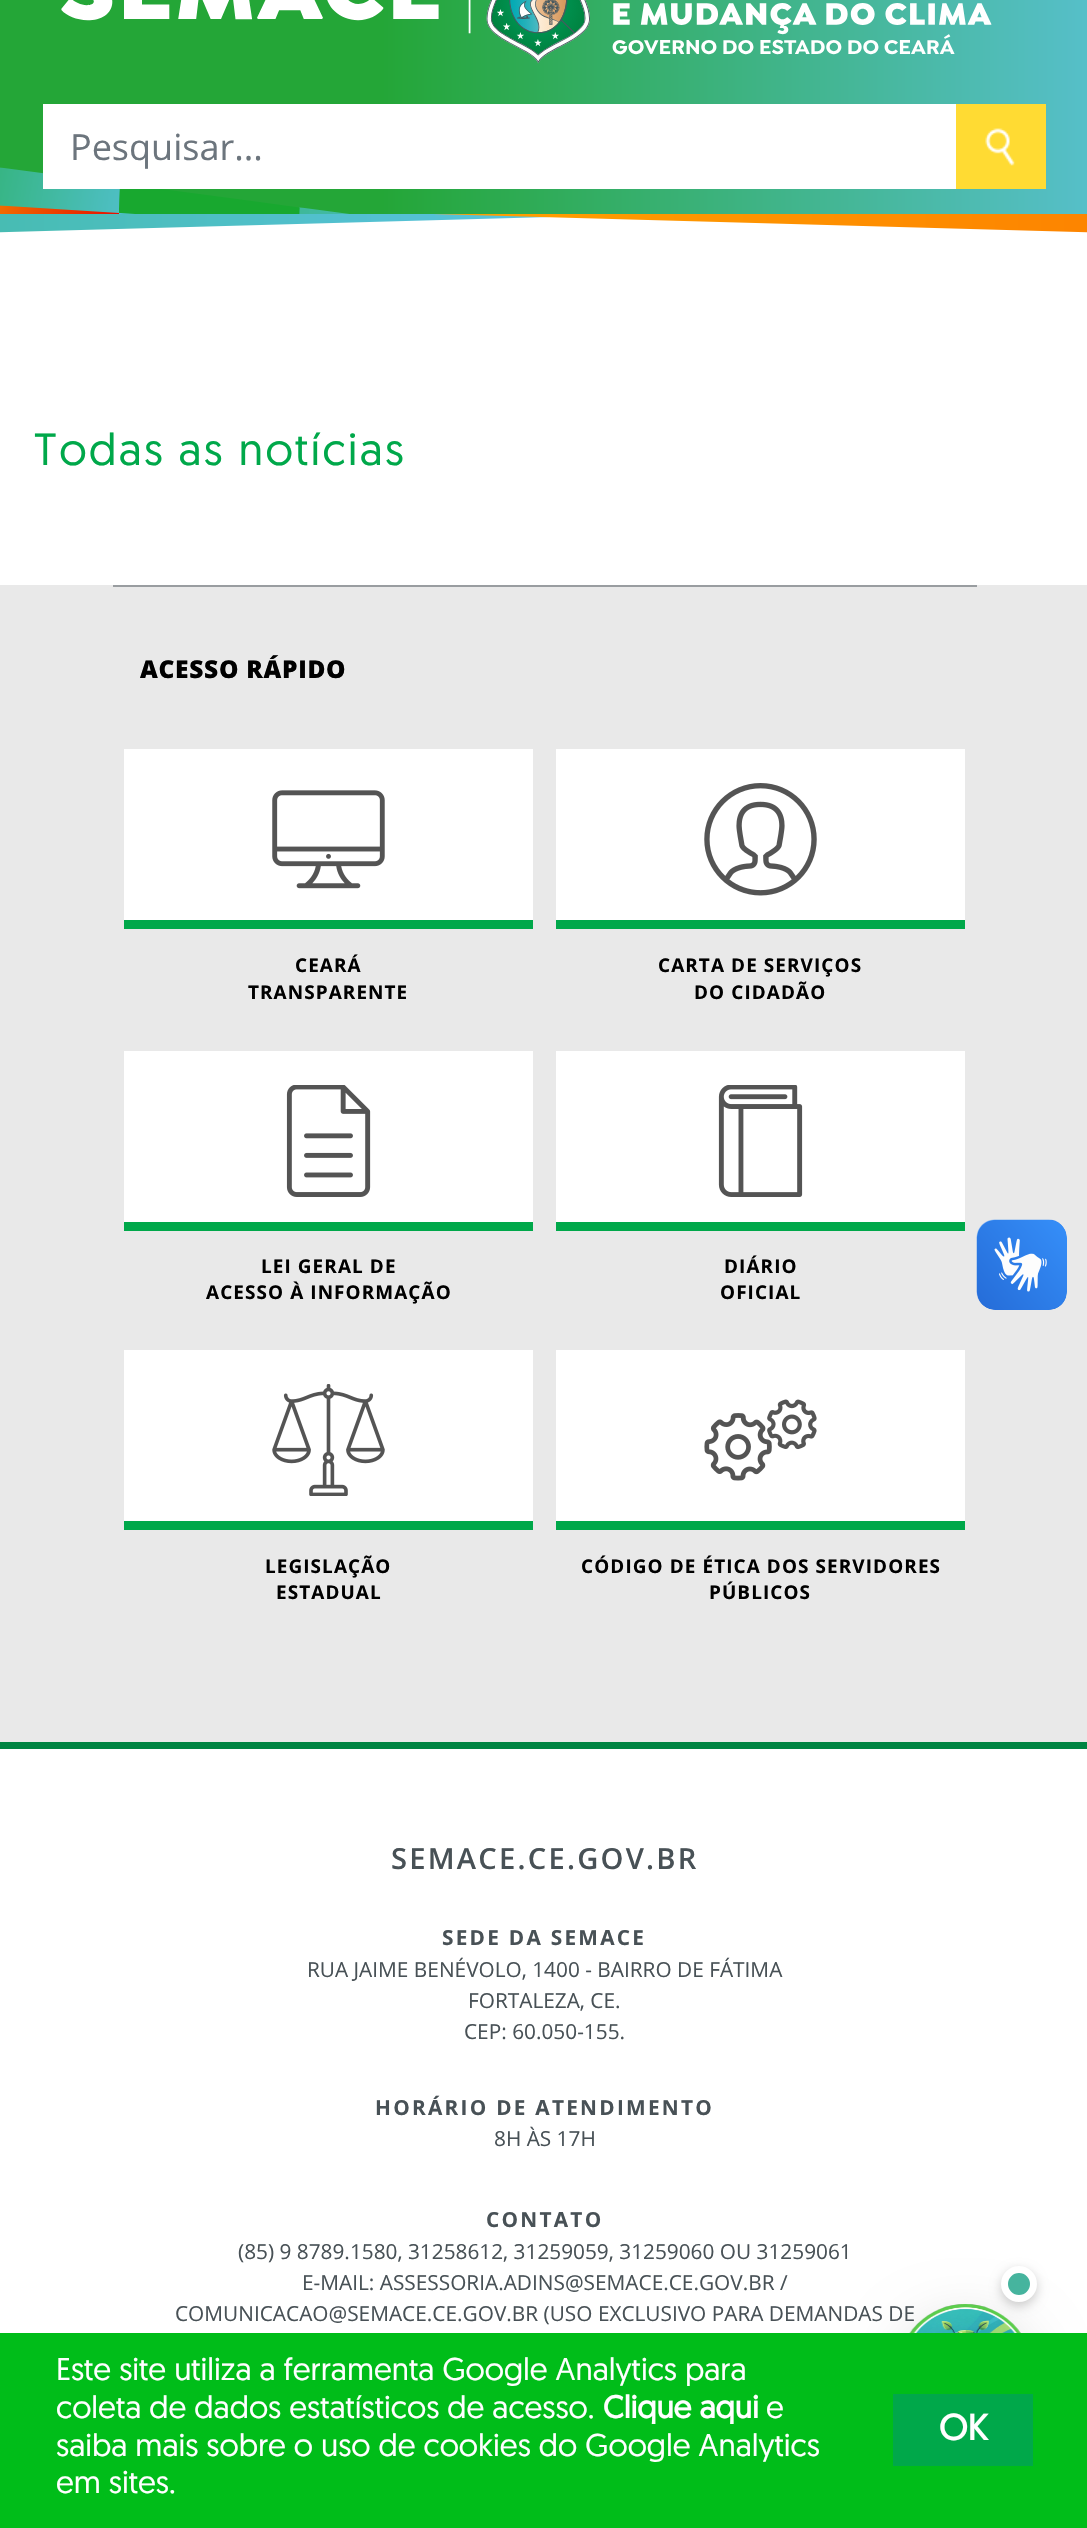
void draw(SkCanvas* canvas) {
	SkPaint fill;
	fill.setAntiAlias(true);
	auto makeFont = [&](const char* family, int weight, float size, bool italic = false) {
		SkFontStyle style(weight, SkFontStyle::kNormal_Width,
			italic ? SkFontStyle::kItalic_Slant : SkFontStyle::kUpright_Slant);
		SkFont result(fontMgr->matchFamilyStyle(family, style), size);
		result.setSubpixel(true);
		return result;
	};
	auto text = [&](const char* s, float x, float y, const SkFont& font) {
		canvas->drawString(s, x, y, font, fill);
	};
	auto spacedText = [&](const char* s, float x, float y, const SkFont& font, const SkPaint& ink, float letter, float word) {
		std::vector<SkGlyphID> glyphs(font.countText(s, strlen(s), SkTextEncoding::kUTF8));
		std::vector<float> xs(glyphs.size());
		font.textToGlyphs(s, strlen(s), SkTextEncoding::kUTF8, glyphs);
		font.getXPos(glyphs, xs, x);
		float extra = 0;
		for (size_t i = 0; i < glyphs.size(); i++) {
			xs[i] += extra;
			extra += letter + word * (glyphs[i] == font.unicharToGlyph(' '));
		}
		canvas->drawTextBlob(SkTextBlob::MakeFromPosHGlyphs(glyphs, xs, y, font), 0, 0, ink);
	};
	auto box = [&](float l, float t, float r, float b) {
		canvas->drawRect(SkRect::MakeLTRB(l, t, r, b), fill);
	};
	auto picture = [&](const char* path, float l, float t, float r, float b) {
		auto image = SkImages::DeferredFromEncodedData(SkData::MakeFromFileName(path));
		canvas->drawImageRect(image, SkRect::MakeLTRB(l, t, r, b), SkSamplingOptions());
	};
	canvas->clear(0xFFFFFFFF);
	{
		const SkColor colors[] = {0xFF56BFC9, 0xFF24A637};
		const float stops[] = {0, 0.65f};
		const SkPoint ends[] = {{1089, 30}, {0, 30}};
		fill.setShader(SkGradientShader::MakeLinear(ends, colors, stops, 2, SkTileMode::kClamp));
		fill.setAlpha(255);
	}
	box(0, 0, 1087, 214);
	picture("image0.png", 0, 167, 349, 214);
	picture("image1.png", 61, 0, 992, 64);
	fill.setShader(nullptr);
	fill.setColor(0xFFFFFFFF);
	box(43, 104, 956, 189);
	fill.setColor(0xFFFFDB33);
	box(956, 104, 1046, 189);
	picture("image2.png", 985, 128, 1015, 166);
	{
		const SkColor colors[] = {0xFF18A82F, 0xFF5BC4E8};
		const float stops[] = {0, 1};
		const SkPoint ends[] = {{-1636, 268}, {658, 268}};
		fill.setShader(SkGradientShader::MakeLinear(ends, colors, stops, 2, SkTileMode::kClamp));
		fill.setAlpha(255);
	}
	canvas->drawPath(SkPathBuilder().moveTo(-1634, 214).lineTo(-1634, 278).lineTo(658, 214).close().detach(), fill);
	{
		const SkColor colors[] = {0xFFF83D00, 0xFFFFA100};
		const float stops[] = {0, 1};
		const SkPoint ends[] = {{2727, 225}, {433, 225}};
		fill.setShader(SkGradientShader::MakeLinear(ends, colors, stops, 2, SkTileMode::kClamp));
		fill.setAlpha(255);
	}
	canvas->drawPath(SkPathBuilder().moveTo(433, 214).lineTo(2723, 278).lineTo(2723, 214).close().detach(), fill);
	fill.setShader(nullptr);
	fill.setColor(0xFFE9E9E9);
	box(0, 585, 1087, 1742);
	fill.setColor(0xFF999DA0);
	box(113, 585, 977, 587);
	fill.setColor(0xFFFFFFFF);
	box(124, 749, 533, 920);
	picture("image3.png", 272, 790, 385, 889);
	fill.setColor(0xFF00A84A);
	box(124, 920, 533, 929);
	fill.setColor(0xFFFFFFFF);
	box(556, 749, 965, 920);
	picture("image4.png", 704, 783, 817, 896);
	fill.setColor(0xFF00A84A);
	box(556, 920, 965, 929);
	fill.setColor(0xFFFFFFFF);
	box(124, 1051, 533, 1222);
	picture("image5.png", 286, 1085, 371, 1197);
	fill.setColor(0xFF00A84A);
	box(124, 1222, 533, 1231);
	fill.setColor(0xFFFFFFFF);
	box(556, 1051, 965, 1222);
	picture("image6.png", 718, 1085, 803, 1197);
	fill.setColor(0xFF00A84A);
	box(556, 1222, 965, 1231);
	fill.setColor(0xFFFFFFFF);
	box(124, 1350, 533, 1521);
	picture("image7.png", 272, 1384, 385, 1496);
	fill.setColor(0xFF00A84A);
	box(124, 1521, 533, 1530);
	fill.setColor(0xFFFFFFFF);
	box(556, 1350, 965, 1521);
	picture("image8.png", 704, 1399, 817, 1481);
	fill.setColor(0xFF00A84A);
	box(556, 1521, 965, 1530);
	picture("image9.png", 976, 1219, 1067, 1310);
	picture("image10.png", 977, 1220, 1067, 1310);
	fill.setColor(0xFF008442);
	box(0, 1742, 1087, 1749);
	fill.setColor(0x26000000);
	fill.setMaskFilter(SkMaskFilter::MakeBlur(kNormal_SkBlurStyle, 28));
	canvas->drawRoundRect(SkRect::MakeLTRB(898, 2322, 1033, 2457), 67.5f, 67.5f, fill);
	fill.setMaskFilter(nullptr);
	fill.setColor(0xFF00BD19);
	box(0, 2333, 1087, 2528);
	fill.setColor(0xFF00A84A);
	box(893, 2394, 1033, 2466);
	auto font1 = makeFont("Open Sans", 400, 36);
	fill.setColor(0xFF6C757D);
	text("Pesquisar...", 70, 160, font1);
	auto font2 = makeFont("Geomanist", 400, 45);
	fill.setColor(0xFF00A84A);
	spacedText("Todas as notícias", 34, 465, font2, fill, 2.25f, 0);
	auto font3 = makeFont("Open Sans", 800, 24.5f);
	fill.setColor(0xFF000000);
	spacedText("ACESSO RÁPIDO", 140, 678, font3, fill, 0.7f, 0);
	auto font4 = makeFont("Open Sans", 700, 18.9f);
	spacedText("CEARÁ", 295, 972, font4, fill, 1.1f, 0);
	spacedText("TRANSPARENTE", 248, 999, font4, fill, 1.1f, 0);
	spacedText("CARTA DE SERVIÇOS", 658, 972, font4, fill, 1.1f, 0);
	spacedText("DO CIDADÃO", 694, 999, font4, fill, 1.1f, 0);
	spacedText("LEI GERAL DE", 261, 1273, font4, fill, 1.1f, 0);
	spacedText("ACESSO À INFORMAÇÃO", 206, 1299, font4, fill, 1.1f, 0);
	spacedText("DIÁRIO", 724, 1273, font4, fill, 1.1f, 0);
	spacedText("OFICIAL", 720, 1299, font4, fill, 1.1f, 0);
	spacedText("LEGISLAÇÃO", 265, 1573, font4, fill, 1.1f, 0);
	spacedText("ESTADUAL", 276, 1599, font4, fill, 1.1f, 0);
	spacedText("CÓDIGO DE ÉTICA DOS SERVIDORES", 581, 1573, font4, fill, 1.1f, 0);
	spacedText("PÚBLICOS", 709, 1599, font4, fill, 1.1f, 0);
	auto font5 = makeFont("Open Sans", 600, 29.1f);
	fill.setColor(0xFF485156);
	spacedText("SEMACE.CE.GOV.BR", 391, 1869, font5, fill, 2.25f, 0);
	auto font6 = makeFont("Open Sans", 700, 20.8f);
	spacedText("SEDE DA SEMACE", 442, 1945, font6, fill, 2.25f, 0);
	auto font7 = makeFont("Open Sans", 400, 20.8f);
	text("RUA JAIME BENÉVOLO, 1400 - BAIRRO DE FÁTIMA", 307, 1977, font7);
	text("FORTALEZA, CE.", 468, 2008, font7);
	text("CEP: 60.050-155.", 464, 2039, font7);
	spacedText("HORÁRIO DE ATENDIMENTO", 375, 2115, font6, fill, 2.25f, 0);
	text("8H ÀS 17H", 494, 2146, font7);
	spacedText("CONTATO", 486, 2227, font6, fill, 2.25f, 0);
	text("(85) 9 8789.1580, 31258612, 31259059, 31259060 OU 31259061", 238, 2259, font7);
	text("E-MAIL: ASSESSORIA.ADINS@SEMACE.CE.GOV.BR /", 302, 2290, font7);
	text("COMUNICACAO@SEMACE.CE.GOV.BR (USO EXCLUSIVO PARA DEMANDAS DE", 175, 2321, font7);
	picture("image11.png", 909, 2304, 1021, 2333);
	fill.setColor(0x33000000);
	fill.setMaskFilter(SkMaskFilter::MakeBlur(kNormal_SkBlurStyle, 5.5f));
	canvas->drawRoundRect(SkRect::MakeLTRB(1001, 2270, 1037, 2306), 18, 18, fill);
	fill.setMaskFilter(nullptr);
	fill.setColor(0xFF46B49E);
	canvas->drawCircle(1019, 2284, 14.5f, fill);
	fill.setStyle(SkPaint::kStroke_Style);
	fill.setStrokeWidth(7);
	fill.setColor(0xFFFFFFFF);
	canvas->drawCircle(1019, 2284, 14.5f, fill);
	auto font8 = makeFont("Geomanist", 400, 31.5f);
	fill.setStyle(SkPaint::kFill_Style);
	text("Este site utiliza a ferramenta Google Analytics para", 56, 2380, font8);
	text("coleta de dados estatísticos de acesso.", 56, 2418, font8);
	auto font9 = makeFont("Geomanist", 700, 31.5f);
	text("Clique aqui", 603, 2418, font9);
	text("e", 766, 2418, font8);
	text("saiba mais sobre o uso de cookies do Google Analytics", 56, 2456, font8);
	text("em sites.", 56, 2493, font8);
	auto font10 = makeFont("Geomanist", 700, 36);
	text("OK", 939, 2440, font10);
}
